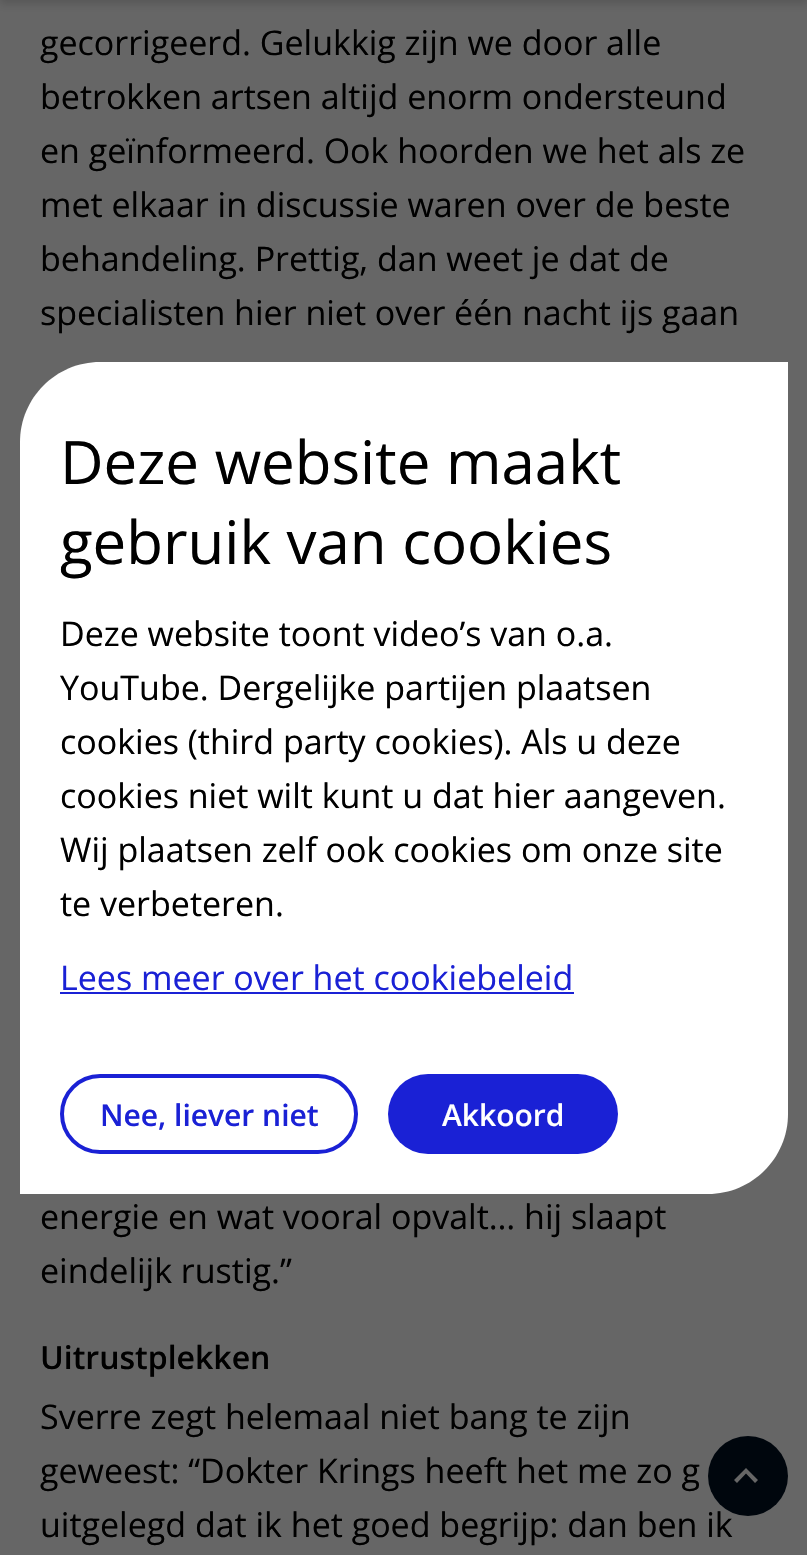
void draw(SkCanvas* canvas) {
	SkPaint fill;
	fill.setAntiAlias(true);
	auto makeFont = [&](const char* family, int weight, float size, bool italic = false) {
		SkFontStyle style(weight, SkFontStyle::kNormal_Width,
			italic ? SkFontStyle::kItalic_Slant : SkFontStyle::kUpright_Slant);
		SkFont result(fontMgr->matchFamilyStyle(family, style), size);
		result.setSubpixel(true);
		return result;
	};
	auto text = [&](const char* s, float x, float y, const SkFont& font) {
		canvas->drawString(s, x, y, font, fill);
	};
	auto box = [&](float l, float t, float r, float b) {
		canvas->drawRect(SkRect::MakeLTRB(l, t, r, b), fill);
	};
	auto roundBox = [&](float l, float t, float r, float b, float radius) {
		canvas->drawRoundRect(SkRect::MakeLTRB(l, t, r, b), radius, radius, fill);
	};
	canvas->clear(0xFF666666);
	fill.setColor(0x26000000);
	fill.setMaskFilter(SkMaskFilter::MakeBlur(kNormal_SkBlurStyle, 4));
	canvas->drawRect(SkRect::MakeLTRB(0, -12, 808, 4), fill);
	fill.setMaskFilter(nullptr);
	fill.setColor(0xFFFFFFFF);
	canvas->drawPath(SkPathBuilder().moveTo(100, 362).lineTo(788, 362).lineTo(788, 1114).cubicTo(788, 1158, 752, 1194, 708, 1194).lineTo(20, 1194).lineTo(20, 442).cubicTo(20, 398, 56, 362, 100, 362).close().detach(), fill);
	fill.setColor(0xFF1A21D5);
	box(60, 992, 574, 994);
	fill.setStyle(SkPaint::kStroke_Style);
	fill.setStrokeWidth(4);
	canvas->drawRoundRect(SkRect::MakeLTRB(62, 1076, 356, 1152), 38, 38, fill);
	fill.setStyle(SkPaint::kFill_Style);
	roundBox(388, 1074, 618, 1154, 40);
	auto font1 = makeFont("Open Sans", 400, 34);
	fill.setColor(0xFF000000);
	text("gecorrigeerd. Gelukkig zijn we door alle", 40, 55, font1);
	text("betrokken artsen altijd enorm ondersteund", 40, 109, font1);
	text("en geïnformeerd. Ook hoorden we het als ze", 40, 163, font1);
	text("met elkaar in discussie waren over de beste", 40, 217, font1);
	text("behandeling. Prettig, dan weet je dat de", 40, 271, font1);
	text("specialisten hier niet over één nacht ijs gaan", 40, 325, font1);
	text("energie en wat vooral opvalt… hij slaapt", 40, 1229, font1);
	text("eindelijk rustig.”", 40, 1283, font1);
	auto font2 = makeFont("Open Sans", 600, 32);
	text("Uitrustplekken", 40, 1369, font2);
	text("Sverre zegt helemaal niet bang te zijn", 40, 1429, font1);
	text("geweest: “Dokter Krings heeft het me zo g", 40, 1483, font1);
	text("uitgelegd dat ik het goed begrijp: dan ben ik", 40, 1537, font1);
	auto font3 = makeFont("Open Sans", 400, 60);
	text("Deze website maakt", 60, 484, font3);
	text("gebruik van cookies", 60, 564, font3);
	text("Deze website toont video’s van o.a.", 60, 646, font1);
	text("YouTube. Dergelijke partijen plaatsen", 60, 700, font1);
	text("cookies (third party cookies). Als u deze", 60, 754, font1);
	text("cookies niet wilt kunt u dat hier aangeven.", 60, 808, font1);
	text("Wij plaatsen zelf ook cookies om onze site", 60, 862, font1);
	text("te verbeteren.", 60, 916, font1);
	fill.setColor(0xFF1A21D5);
	text("Lees meer over het cookiebeleid", 60, 990, font1);
	auto font4 = makeFont("Open Sans", 600, 30);
	text("Nee, liever niet", 100, 1126, font4);
	fill.setColor(0xFFFFFFFF);
	text("Akkoord", 442, 1126, font4);
	fill.setColor(0xFF00060D);
	canvas->drawCircle(748, 1476, 40, fill);
	fill.setColor(0xFF666666);
	canvas->drawPath(SkPathBuilder(SkPathFillType::kEvenOdd).moveTo(746, 1468).lineTo(734, 1480).lineTo(737, 1483).lineTo(746, 1473.5f).lineTo(755, 1483).lineTo(758, 1480).close().detach(), fill);
}
